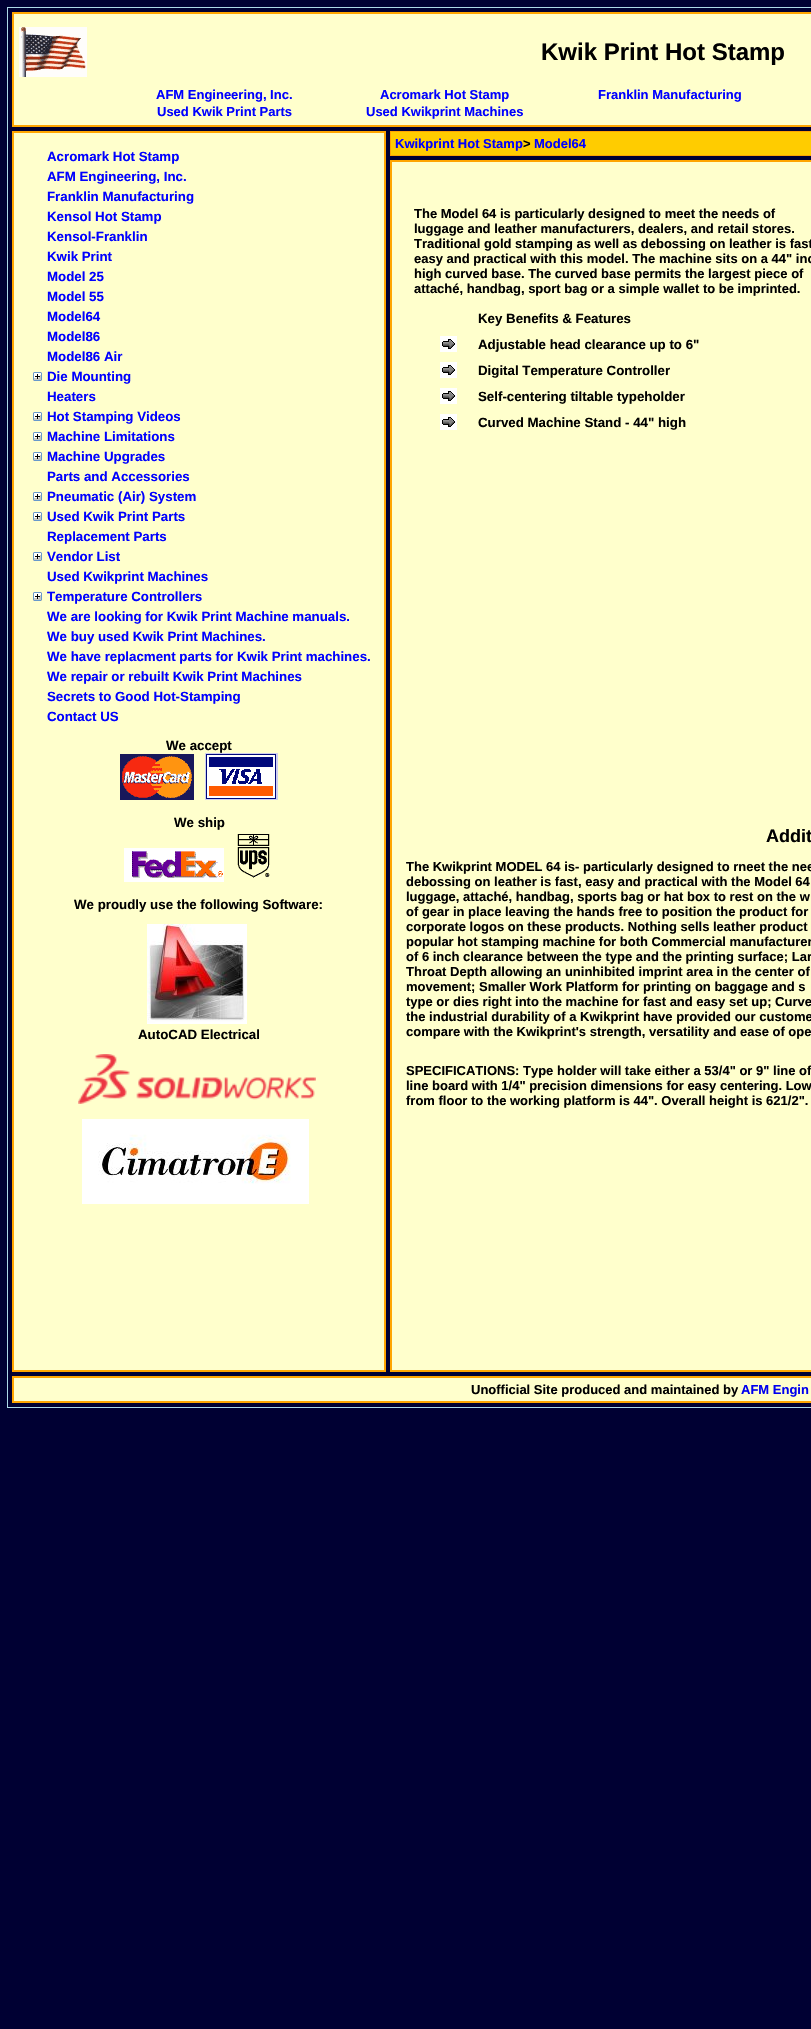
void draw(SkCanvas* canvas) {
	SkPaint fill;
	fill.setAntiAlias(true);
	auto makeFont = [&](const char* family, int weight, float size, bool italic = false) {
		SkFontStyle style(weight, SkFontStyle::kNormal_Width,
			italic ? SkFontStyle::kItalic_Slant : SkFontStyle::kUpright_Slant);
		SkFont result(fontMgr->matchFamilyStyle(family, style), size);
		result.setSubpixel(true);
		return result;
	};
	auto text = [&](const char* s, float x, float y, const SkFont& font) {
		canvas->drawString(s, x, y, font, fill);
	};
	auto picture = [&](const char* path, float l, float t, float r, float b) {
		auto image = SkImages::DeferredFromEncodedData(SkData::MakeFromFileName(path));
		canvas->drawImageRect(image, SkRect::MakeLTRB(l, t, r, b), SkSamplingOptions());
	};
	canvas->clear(0xFF000033);
	fill.setStyle(SkPaint::kStroke_Style);
	fill.setStrokeWidth(1);
	fill.setColor(0xFFADD8E6);
	canvas->drawRect(SkRect::MakeLTRB(7.5f, 7.5f, 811.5f, 1407.5f), fill);
	fill.setStyle(SkPaint::kFill_Style);
	fill.setColor(0xFFFFFFCC);
	canvas->drawRect(SkRect::MakeLTRB(13, 13, 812, 126), fill);
	fill.setStyle(SkPaint::kStroke_Style);
	fill.setStrokeWidth(2);
	fill.setColor(0xFFFFA500);
	canvas->drawRect(SkRect::MakeLTRB(13, 13, 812, 126), fill);
	picture("image0.png", 19, 27, 87, 77);
	fill.setStyle(SkPaint::kFill_Style);
	fill.setColor(0xFFFFCC00);
	canvas->drawRect(SkRect::MakeLTRB(390.5f, 131.5f, 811.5f, 155.5f), fill);
	fill.setStyle(SkPaint::kStroke_Style);
	fill.setStrokeWidth(1);
	fill.setColor(0xFFFFA500);
	canvas->drawRect(SkRect::MakeLTRB(390.5f, 131.5f, 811.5f, 155.5f), fill);
	fill.setStyle(SkPaint::kFill_Style);
	fill.setColor(0xFFFFFFCC);
	canvas->drawRect(SkRect::MakeLTRB(13, 132, 385, 1371), fill);
	fill.setStyle(SkPaint::kStroke_Style);
	fill.setStrokeWidth(2);
	fill.setColor(0xFFFFA500);
	canvas->drawRect(SkRect::MakeLTRB(13, 132, 385, 1371), fill);
	picture("image1.png", 33, 372, 42, 381);
	picture("image1.png", 33, 412, 42, 421);
	picture("image1.png", 33, 432, 42, 441);
	picture("image1.png", 33, 452, 42, 461);
	picture("image1.png", 33, 492, 42, 501);
	picture("image1.png", 33, 512, 42, 521);
	picture("image1.png", 33, 552, 42, 561);
	picture("image1.png", 33, 592, 42, 601);
	picture("image2.png", 120, 754, 194, 800);
	picture("image3.png", 205, 753, 278, 800);
	picture("image4.png", 124, 848, 224, 882);
	picture("image5.png", 237, 834, 270, 878);
	picture("image6.png", 147, 924, 247, 1024);
	picture("image7.png", 78, 1054, 316, 1104);
	picture("image8.png", 82, 1119, 309, 1204);
	fill.setStyle(SkPaint::kFill_Style);
	fill.setColor(0xFFFFFFCC);
	canvas->drawRect(SkRect::MakeLTRB(391, 161, 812, 1371), fill);
	fill.setStyle(SkPaint::kStroke_Style);
	fill.setColor(0xFFFFA500);
	canvas->drawRect(SkRect::MakeLTRB(391, 161, 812, 1371), fill);
	picture("image9.png", 440, 336, 457, 352);
	picture("image9.png", 440, 362, 457, 378);
	picture("image9.png", 440, 388, 457, 404);
	picture("image9.png", 440, 414, 457, 430);
	fill.setStyle(SkPaint::kFill_Style);
	fill.setColor(0xFFFFFFCC);
	canvas->drawRect(SkRect::MakeLTRB(13, 1377, 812, 1402), fill);
	fill.setStyle(SkPaint::kStroke_Style);
	fill.setColor(0xFFFFA500);
	canvas->drawRect(SkRect::MakeLTRB(13, 1377, 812, 1402), fill);
	auto font1 = makeFont("Liberation Sans", 700, 24);
	fill.setStyle(SkPaint::kFill_Style);
	fill.setColor(0xFF000000);
	text("Kwik Print Hot Stamp", 541, 60, font1);
	auto font2 = makeFont("Liberation Sans", 700, 13);
	fill.setColor(0xFF0000FF);
	text("AFM Engineering, Inc.", 156, 99, font2);
	text("Acromark Hot Stamp", 380, 99, font2);
	text("Franklin Manufacturing", 598, 99, font2);
	text("Used Kwik Print Parts", 157, 116, font2);
	text("Used Kwikprint Machines", 366, 116, font2);
	text("Kwikprint Hot Stamp", 395, 148, font2);
	fill.setColor(0xFF000000);
	text(">", 523, 148, font2);
	fill.setColor(0xFF0000FF);
	text("Model64", 534, 148, font2);
	auto font3 = makeFont("Liberation Sans", 700, 13.3f);
	text("Acromark Hot Stamp", 47, 161, font3);
	text("AFM Engineering, Inc.", 47, 181, font3);
	text("Franklin Manufacturing", 47, 201, font3);
	text("Kensol Hot Stamp", 47, 221, font3);
	text("Kensol-Franklin", 47, 241, font3);
	text("Kwik Print", 47, 261, font3);
	text("Model 25", 47, 281, font3);
	text("Model 55", 47, 301, font3);
	text("Model64", 47, 321, font3);
	text("Model86", 47, 341, font3);
	text("Model86 Air", 47, 361, font3);
	text("Die Mounting", 47, 381, font3);
	text("Heaters", 47, 401, font3);
	text("Hot Stamping Videos", 47, 421, font3);
	text("Machine Limitations", 47, 441, font3);
	text("Machine Upgrades", 47, 461, font3);
	text("Parts and Accessories", 47, 481, font3);
	text("Pneumatic (Air) System", 47, 501, font3);
	text("Used Kwik Print Parts", 47, 521, font3);
	text("Replacement Parts", 47, 541, font3);
	text("Vendor List", 47, 561, font3);
	text("Used Kwikprint Machines", 47, 581, font3);
	text("Temperature Controllers", 47, 601, font3);
	text("We are looking for Kwik Print Machine manuals.", 47, 621, font3);
	text("We buy used Kwik Print Machines.", 47, 641, font3);
	text("We have replacment parts for Kwik Print machines.", 47, 661, font3);
	text("We repair or rebuilt Kwik Print Machines", 47, 681, font3);
	text("Secrets to Good Hot-Stamping", 47, 701, font3);
	text("Contact US", 47, 721, font3);
	fill.setColor(0xFF000000);
	text("We accept", 166, 750, font3);
	text("We ship", 174, 827, font3);
	text("We proudly use the following Software:", 74, 909, font3);
	text("AutoCAD Electrical", 138, 1039, font3);
	text("The Model 64 is particularly designed to meet the needs of", 414, 218, font2);
	text("luggage and leather manufacturers, dealers, and retail stores.", 414, 233, font2);
	text("Traditional gold stamping as well as debossing on leather is fast", 414, 248, font2);
	text("easy and practical with this model. The machine sits on a 44\" inc", 414, 263, font2);
	text("high curved base. The curved base permits the largest piece of", 414, 278, font2);
	text("attaché, handbag, sport bag or a simple wallet to be imprinted.", 414, 293, font2);
	text("Key Benefits & Features", 478, 323, font3);
	text("Adjustable head clearance up to 6\"", 478, 349, font3);
	text("Digital Temperature Controller", 478, 375, font3);
	text("Self-centering tiltable typeholder", 478, 401, font3);
	text("Curved Machine Stand - 44\" high", 478, 427, font3);
	auto font4 = makeFont("Liberation Sans", 700, 18);
	text("Addit", 766, 842, font4);
	text("The Kwikprint MODEL 64 is- particularly designed to rneet the nee", 406, 871, font2);
	text("debossing on leather is fast, easy and practical with the Model 64", 406, 886, font2);
	text("luggage, attaché, handbag, sports bag or hat box to rest on the w", 406, 901, font2);
	text("of gear in place leaving the hands free to position the product for", 406, 916, font2);
	text("corporate logos on these products. Nothing sells leather product", 406, 931, font2);
	text("popular hot stamping machine for both Commercial manufacturer", 406, 946, font2);
	text("of 6 inch clearance between the type and the printing surface; Lar", 406, 961, font2);
	text("Throat Depth allowing an uninhibited imprint area in the center of", 406, 976, font2);
	text("movement; Smaller Work Platform for printing on baggage and s", 406, 991, font2);
	text("type or dies right into the machine for fast and easy set up; Curve", 406, 1006, font2);
	text("the industrial durability of a Kwikprint have provided our custome", 406, 1021, font2);
	text("compare with the Kwikprint's strength, versatility and ease of ope", 406, 1036, font2);
	text("SPECIFICATIONS: Type holder will take either a 53/4\" or 9\" line of", 406, 1075, font2);
	text("line board with 1/4\" precision dimensions for easy centering. Low", 406, 1090, font2);
	text("from floor to the working platform is 44\". Overall height is 621/2\".", 406, 1105, font2);
	text("Unofficial Site produced and maintained by", 471, 1394, font2);
	fill.setColor(0xFF0000EE);
	text("AFM Engin", 741, 1394, font2);
}
